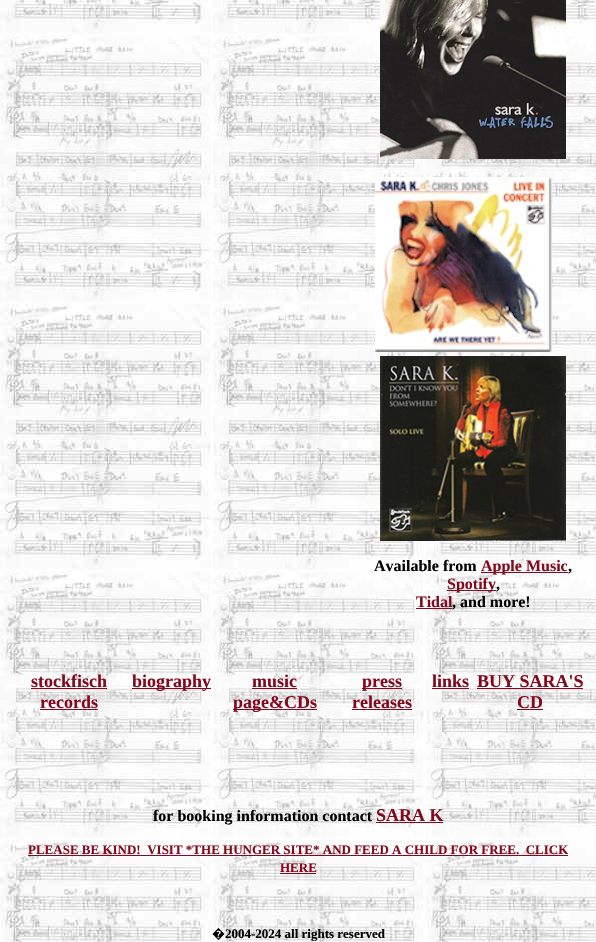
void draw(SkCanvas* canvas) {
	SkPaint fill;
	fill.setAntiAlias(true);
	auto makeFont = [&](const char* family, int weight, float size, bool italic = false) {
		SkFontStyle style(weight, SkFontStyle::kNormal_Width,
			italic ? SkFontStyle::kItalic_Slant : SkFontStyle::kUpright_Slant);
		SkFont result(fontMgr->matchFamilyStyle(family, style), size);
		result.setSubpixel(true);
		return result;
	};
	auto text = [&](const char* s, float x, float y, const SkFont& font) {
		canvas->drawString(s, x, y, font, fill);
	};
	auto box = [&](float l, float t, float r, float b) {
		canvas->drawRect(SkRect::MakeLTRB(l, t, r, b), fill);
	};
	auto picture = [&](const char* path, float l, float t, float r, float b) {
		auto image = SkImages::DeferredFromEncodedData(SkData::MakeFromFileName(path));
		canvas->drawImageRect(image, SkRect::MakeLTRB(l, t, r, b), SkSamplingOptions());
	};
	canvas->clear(0xFFFFFFFF);
	picture("image0.png", 0, 0, 596, 942);
	picture("image1.png", 380, 0, 566, 159);
	picture("image2.png", 375, 177, 552, 352);
	picture("image3.png", 380, 356, 566, 541);
	fill.setColor(0xFF84091E);
	box(481, 572, 568, 573);
	box(447, 590, 496, 591);
	box(416, 608, 452, 609);
	box(31, 688, 107, 689);
	box(40, 709, 98, 710);
	box(132, 688, 211, 689);
	box(252, 688, 297, 689);
	box(233, 709, 317, 710);
	box(362, 688, 402, 689);
	box(352, 709, 412, 710);
	box(432, 688, 469, 689);
	box(477, 688, 583, 689);
	box(517, 709, 543, 710);
	box(376, 822, 443, 823);
	box(28, 855, 568, 856);
	box(280, 873, 316, 874);
	auto font1 = makeFont("Liberation Serif", 700, 16);
	fill.setColor(0xFF000000);
	text("Available from", 374, 571, font1);
	fill.setColor(0xFF84091E);
	text("Apple Music", 481, 571, font1);
	fill.setColor(0xFF000000);
	text(",", 568, 571, font1);
	fill.setColor(0xFF84091E);
	text("Spotify", 447, 589, font1);
	fill.setColor(0xFF000000);
	text(",", 496, 589, font1);
	fill.setColor(0xFF84091E);
	text("Tidal", 416, 607, font1);
	fill.setColor(0xFF000000);
	text(", and more!", 452, 607, font1);
	auto font2 = makeFont("Liberation Serif", 700, 18);
	fill.setColor(0xFF84091E);
	text("stockfisch", 31, 687, font2);
	text("records", 40, 708, font2);
	text("biography", 132, 687, font2);
	text("music", 252, 687, font2);
	text("page&CDs", 233, 708, font2);
	text("press", 362, 687, font2);
	text("releases", 352, 708, font2);
	text("links", 432, 687, font2);
	text("BUY SARA'S", 477, 687, font2);
	text("CD", 517, 708, font2);
	fill.setColor(0xFF000000);
	text("for booking information contact", 153, 821, font1);
	fill.setColor(0xFF84091E);
	text("SARA K", 376, 821, font2);
	auto font3 = makeFont("Liberation Serif", 700, 13);
	text("PLEASE BE KIND!  VISIT *THE HUNGER SITE* AND FEED A CHILD FOR FREE.  CLICK", 28, 854, font3);
	text("HERE", 280, 872, font3);
	auto font4 = makeFont("Noto Sans", 700, 13);
	fill.setColor(0xFF000000);
	text("�", 212, 938, font4);
	text("2004-2024 all rights reserved", 225, 938, font3);
}
